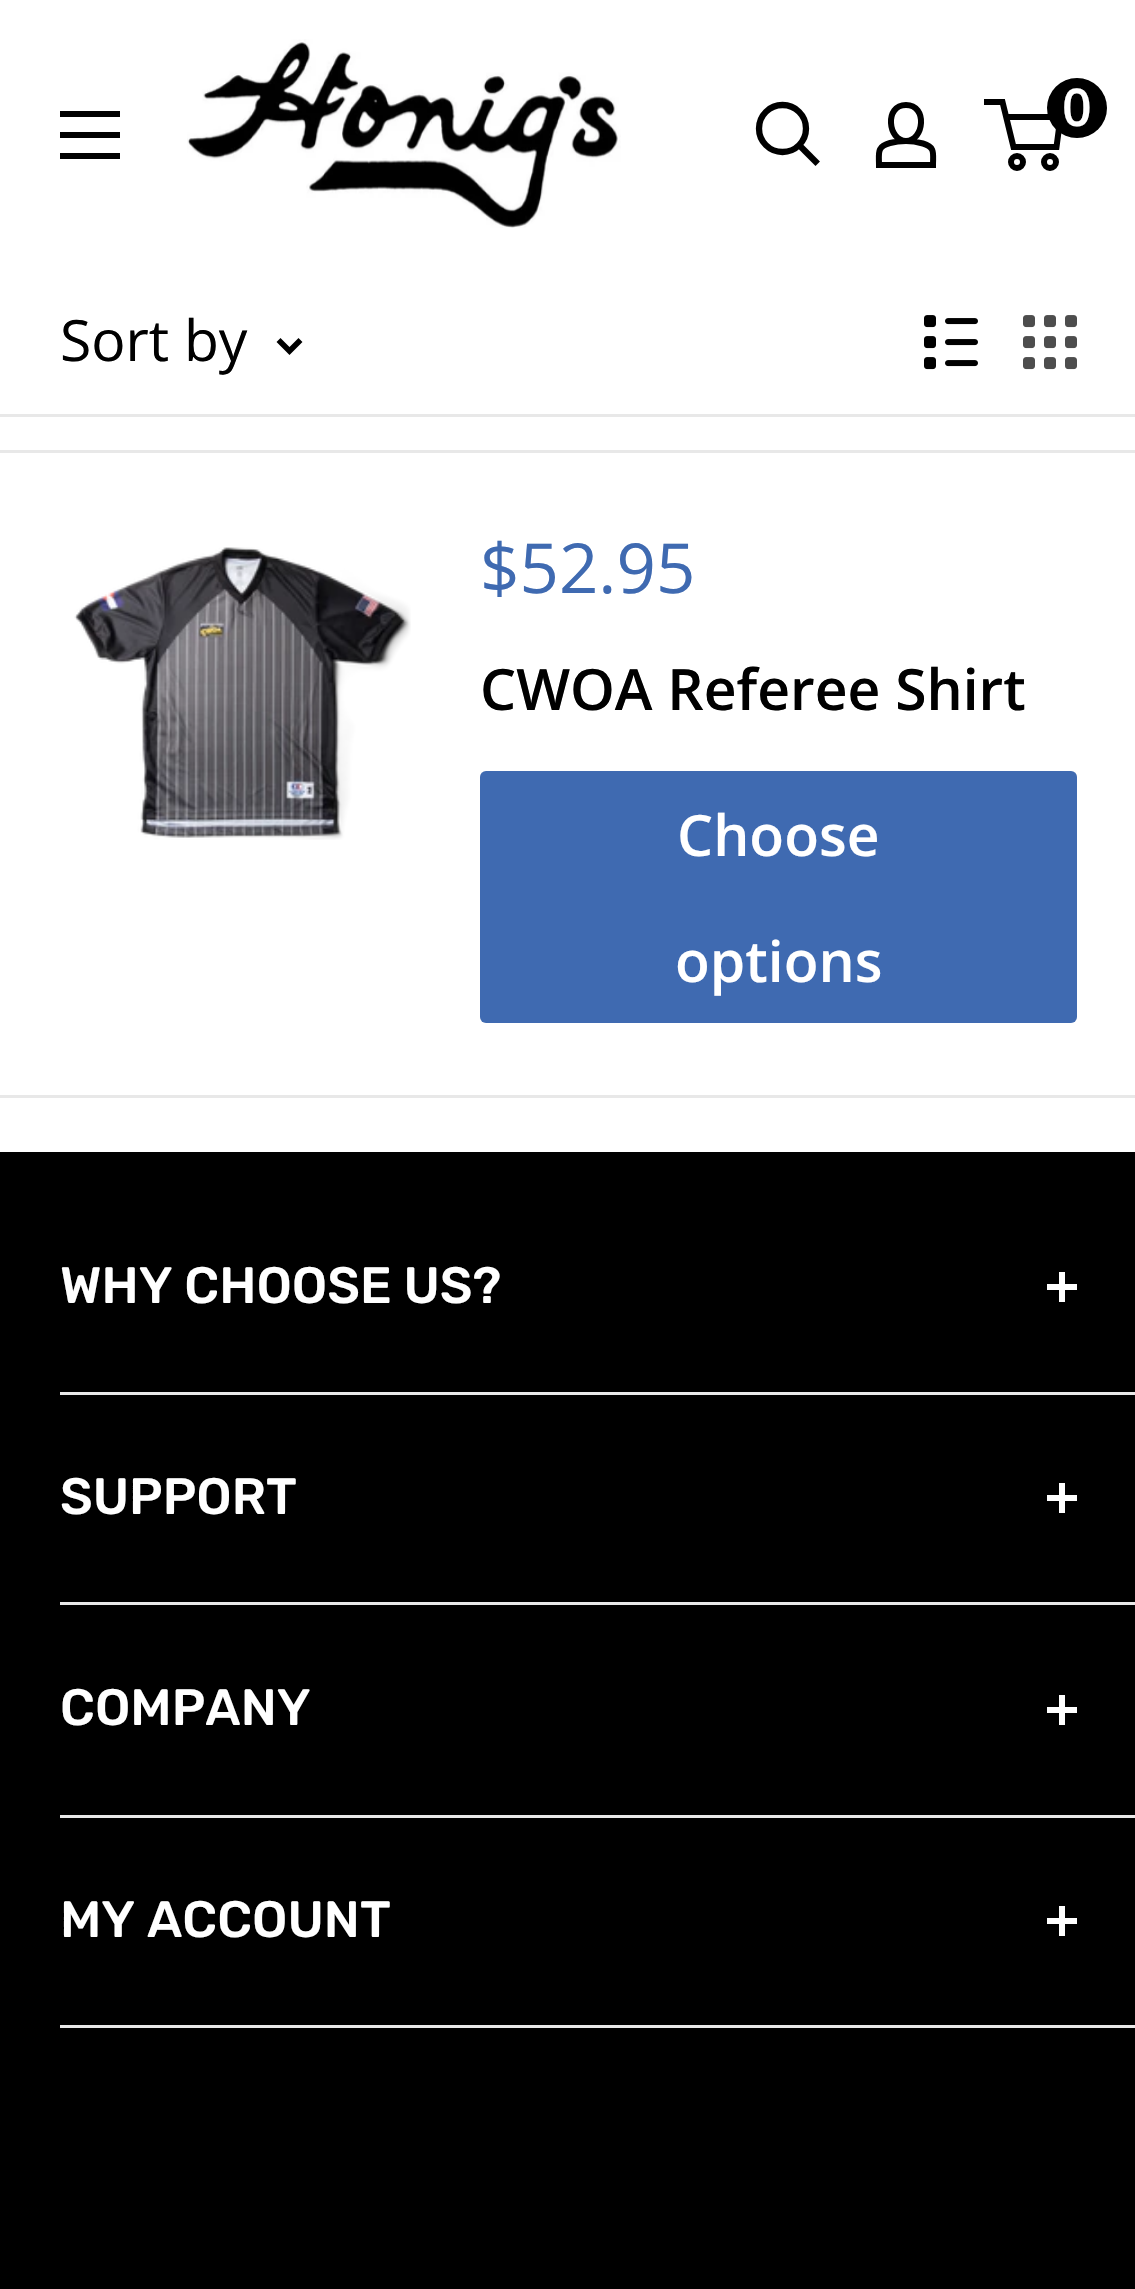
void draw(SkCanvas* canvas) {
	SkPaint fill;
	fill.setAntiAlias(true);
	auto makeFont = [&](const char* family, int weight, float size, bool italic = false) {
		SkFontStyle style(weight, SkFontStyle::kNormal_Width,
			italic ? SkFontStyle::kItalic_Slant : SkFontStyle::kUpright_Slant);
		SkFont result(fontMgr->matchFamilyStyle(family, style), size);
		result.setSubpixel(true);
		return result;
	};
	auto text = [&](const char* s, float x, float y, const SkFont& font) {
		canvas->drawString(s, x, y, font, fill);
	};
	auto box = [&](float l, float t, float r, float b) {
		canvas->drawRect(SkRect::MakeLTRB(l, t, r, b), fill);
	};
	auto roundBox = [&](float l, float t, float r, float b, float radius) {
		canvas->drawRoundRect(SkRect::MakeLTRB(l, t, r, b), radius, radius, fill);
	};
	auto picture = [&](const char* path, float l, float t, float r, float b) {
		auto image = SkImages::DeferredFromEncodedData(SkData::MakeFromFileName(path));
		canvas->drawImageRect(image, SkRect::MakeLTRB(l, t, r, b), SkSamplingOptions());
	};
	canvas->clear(0xFFFFFFFF);
	fill.setColor(0xFF000000);
	canvas->drawPath(SkPathBuilder(SkPathFillType::kEvenOdd).moveTo(60, 153).lineTo(120, 153).lineTo(120, 159).lineTo(60, 159).close().moveTo(60, 111).lineTo(120, 111).lineTo(120, 117).lineTo(60, 117).close().moveTo(60, 132).lineTo(120, 132).lineTo(120, 138).lineTo(60, 138).close().detach(), fill);
	picture("image0.png", 187, 39, 621, 228);
	fill.setStyle(SkPaint::kStroke_Style);
	fill.setStrokeWidth(6.3f);
	fill.setStrokeCap(SkPaint::kSquare_Cap);
	canvas->drawPath(SkPathBuilder().moveTo(815.5f, 161.5f).lineTo(800, 146).detach(), fill);
	fill.setStrokeCap(SkPaint::kButt_Cap);
	canvas->drawCircle(782.5f, 128.5f, 23.5f, fill);
	fill.setStrokeWidth(6);
	canvas->drawPath(SkPathBuilder().moveTo(906, 141).cubicTo(911.5f, 141, 917.5f, 142, 923, 143.5f).cubicTo(935.5f, 147, 933, 153.5f, 933, 165).lineTo(879, 165).cubicTo(879, 153, 876.5f, 146.5f, 890, 143).cubicTo(895.5f, 141.5f, 900.5f, 141, 906, 141).close().moveTo(906, 141).cubicTo(888, 141, 884, 105, 906, 105).cubicTo(928, 105, 924, 141, 906, 141).close().detach(), fill);
	canvas->drawCircle(1017, 162, 6, fill);
	canvas->drawCircle(1050, 162, 6, fill);
	canvas->drawPath(SkPathBuilder().moveTo(1006, 117).lineTo(1060.5f, 117).lineTo(1056.5f, 147).lineTo(1013.5f, 147).lineTo(1002.5f, 102).lineTo(984, 102).detach(), fill);
	fill.setStyle(SkPaint::kFill_Style);
	canvas->drawCircle(1077, 108, 30, fill);
	fill.setColor(0xFFE8E8E8);
	box(0, 1095, 1135, 1098);
	box(0, 414, 1135, 417);
	fill.setStyle(SkPaint::kStroke_Style);
	fill.setStrokeWidth(5.6f);
	fill.setStrokeCap(SkPaint::kSquare_Cap);
	fill.setColor(0xFF000000);
	canvas->drawPath(SkPathBuilder().moveTo(298.5f, 342).lineTo(289.5f, 351).lineTo(280.5f, 342).detach(), fill);
	picture("image1.png", 924, 315, 978, 370);
	picture("image2.png", 1023, 315, 1077, 370);
	fill.setStyle(SkPaint::kFill_Style);
	fill.setColor(0xFFE8E8E8);
	box(0, 450, 1135, 453);
	picture("image3.png", 74, 547, 411, 840);
	fill.setColor(0xFF3F6AB1);
	roundBox(480, 771, 1077, 1023, 6);
	fill.setColor(0xFF000000);
	box(0, 1152, 1135, 2289);
	fill.setColor(0xFFE8E8E8);
	box(60, 1392, 1135, 1395);
	fill.setColor(0xFFFFFFFF);
	box(1059, 1272, 1065, 1302);
	box(1047, 1284, 1077, 1290);
	fill.setColor(0xFFE8E8E8);
	box(60, 1602, 1135, 1605);
	fill.setColor(0xFFFFFFFF);
	box(1059, 1483, 1065, 1513);
	box(1047, 1495, 1077, 1501);
	fill.setColor(0xFFE8E8E8);
	box(60, 1815, 1135, 1818);
	fill.setColor(0xFFFFFFFF);
	box(1059, 1695, 1065, 1725);
	box(1047, 1707, 1077, 1713);
	fill.setColor(0xFFE8E8E8);
	box(60, 2025, 1135, 2028);
	fill.setColor(0xFFFFFFFF);
	box(1059, 1906, 1065, 1936);
	box(1047, 1918, 1077, 1924);
	auto font1 = makeFont("Open Sans", 600, 52);
	text("0", 1062, 126, font1);
	auto font2 = makeFont("Open Sans", 400, 57);
	fill.setColor(0xFF000000);
	text("Sort by", 60, 361, font2);
	auto font3 = makeFont("Open Sans", 400, 69);
	fill.setColor(0xFF3F6AB1);
	text("$52.95", 480, 593, font3);
	auto font4 = makeFont("Open Sans", 600, 57);
	fill.setColor(0xFF000000);
	text("CWOA Referee Shirt", 480, 710, font4);
	fill.setColor(0xFFFFFFFF);
	text("Choose", 677, 856, font4);
	text("options", 675, 982, font4);
	auto font5 = makeFont("Rubik", 500, 51);
	text("WHY CHOOSE US?", 60, 1303, font5);
	text("SUPPORT", 60, 1514, font5);
	text("COMPANY", 60, 1725, font5);
	text("MY ACCOUNT", 60, 1937, font5);
}
